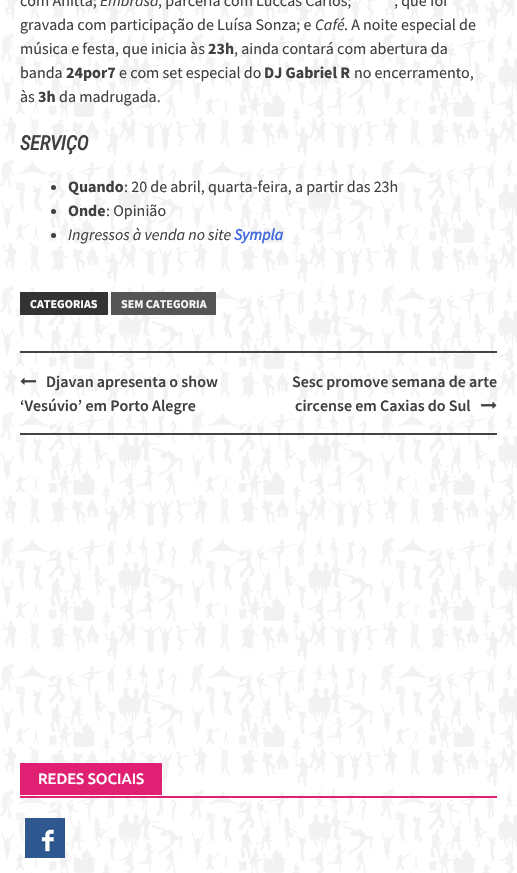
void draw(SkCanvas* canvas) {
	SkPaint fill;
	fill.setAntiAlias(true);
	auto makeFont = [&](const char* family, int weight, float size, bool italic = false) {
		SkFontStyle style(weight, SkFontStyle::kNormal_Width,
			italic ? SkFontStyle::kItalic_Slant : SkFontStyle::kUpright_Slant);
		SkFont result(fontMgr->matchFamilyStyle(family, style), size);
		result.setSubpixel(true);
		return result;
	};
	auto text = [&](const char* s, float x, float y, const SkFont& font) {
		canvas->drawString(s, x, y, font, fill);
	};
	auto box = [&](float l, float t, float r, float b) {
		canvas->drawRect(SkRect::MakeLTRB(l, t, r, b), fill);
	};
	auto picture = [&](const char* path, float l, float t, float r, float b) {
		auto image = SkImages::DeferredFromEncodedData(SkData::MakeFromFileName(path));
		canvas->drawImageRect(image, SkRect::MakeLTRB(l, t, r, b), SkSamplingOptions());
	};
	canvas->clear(0xFFFFFFFF);
	picture("image0.png", 0, 0, 517, 873);
	fill.setColor(0xFF404040);
	canvas->drawCircle(53.5f, 187.5f, 2.5f, fill);
	canvas->drawCircle(53.5f, 211.5f, 2.5f, fill);
	canvas->drawCircle(53.5f, 235.5f, 2.5f, fill);
	fill.setColor(0xFF333333);
	box(20, 292, 108, 315);
	fill.setColor(0xFF555555);
	box(111, 292, 216, 315);
	fill.setColor(0xFF444444);
	box(20, 351, 497, 353);
	box(20, 433, 497, 435);
	picture("image1.png", 20, 377, 36, 385);
	picture("image2.png", 481, 401, 497, 409);
	fill.setColor(0xFFDF2073);
	box(20, 796, 497, 798);
	box(20, 763, 162, 795);
	picture("image3.png", 25, 818, 65, 858);
	auto font1 = makeFont("Source Sans Pro", 400, 16);
	fill.setColor(0xFF404040);
	text("com Anitta;", 20, 6, font1);
	auto font2 = makeFont("Source Sans Pro", 400, 16, true);
	text("Embrasa", 100, 6, font2);
	text(", parceria com Luccas Carlos;", 158, 6, font1);
	text(", que foi", 394, 6, font1);
	text("gravada com participação de Luísa Sonza; e", 20, 30, font1);
	text("Café", 315, 30, font2);
	text(". A noite especial de", 344, 30, font1);
	text("música e festa, que inicia às", 20, 54, font1);
	auto font3 = makeFont("Source Sans Pro", 700, 16);
	text("23h", 208, 54, font3);
	text(", ainda contará com abertura da", 234, 54, font1);
	text("banda", 20, 78, font1);
	text("24por7", 66, 78, font3);
	text("e com set especial do", 119, 78, font1);
	text("DJ Gabriel R", 264, 78, font3);
	text("no encerramento,", 354, 78, font1);
	text("às", 20, 102, font1);
	text("3h", 38, 102, font3);
	text("da madrugada.", 59, 102, font1);
	auto font4 = makeFont("Roboto Condensed", 700, 20, true);
	text("SERVIÇO", 20, 150, font4);
	text("Quando", 68, 192, font3);
	text(": 20 de abril, quarta-feira, a partir das 23h", 124, 192, font1);
	text("Onde", 68, 216, font3);
	text(": Opinião", 106, 216, font1);
	text("Ingressos à venda no site", 68, 240, font2);
	auto font5 = makeFont("Source Sans Pro", 700, 16, true);
	fill.setColor(0xFF4169E1);
	text("Sympla", 234, 240, font5);
	auto font6 = makeFont("Source Sans Pro", 700, 12);
	fill.setColor(0xFFFFFFFF);
	text("CATEGORIAS", 30, 308, font6);
	fill.setColor(0xFFF5F5F5);
	text("SEM CATEGORIA", 121, 308, font6);
	auto font7 = makeFont("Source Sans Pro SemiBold", 600, 16);
	fill.setColor(0xFF404040);
	text("Djavan apresenta o show", 46, 387, font7);
	text("‘Vesúvio’ em Porto Alegre", 20, 411, font7);
	text("Sesc promove semana de arte", 292, 387, font7);
	text("circense em Caxias do Sul", 295, 411, font7);
	auto font8 = makeFont("Ubuntu", 500, 15);
	fill.setColor(0xFFFFFFFF);
	text("REDES SOCIAIS", 38, 784, font8);
}
